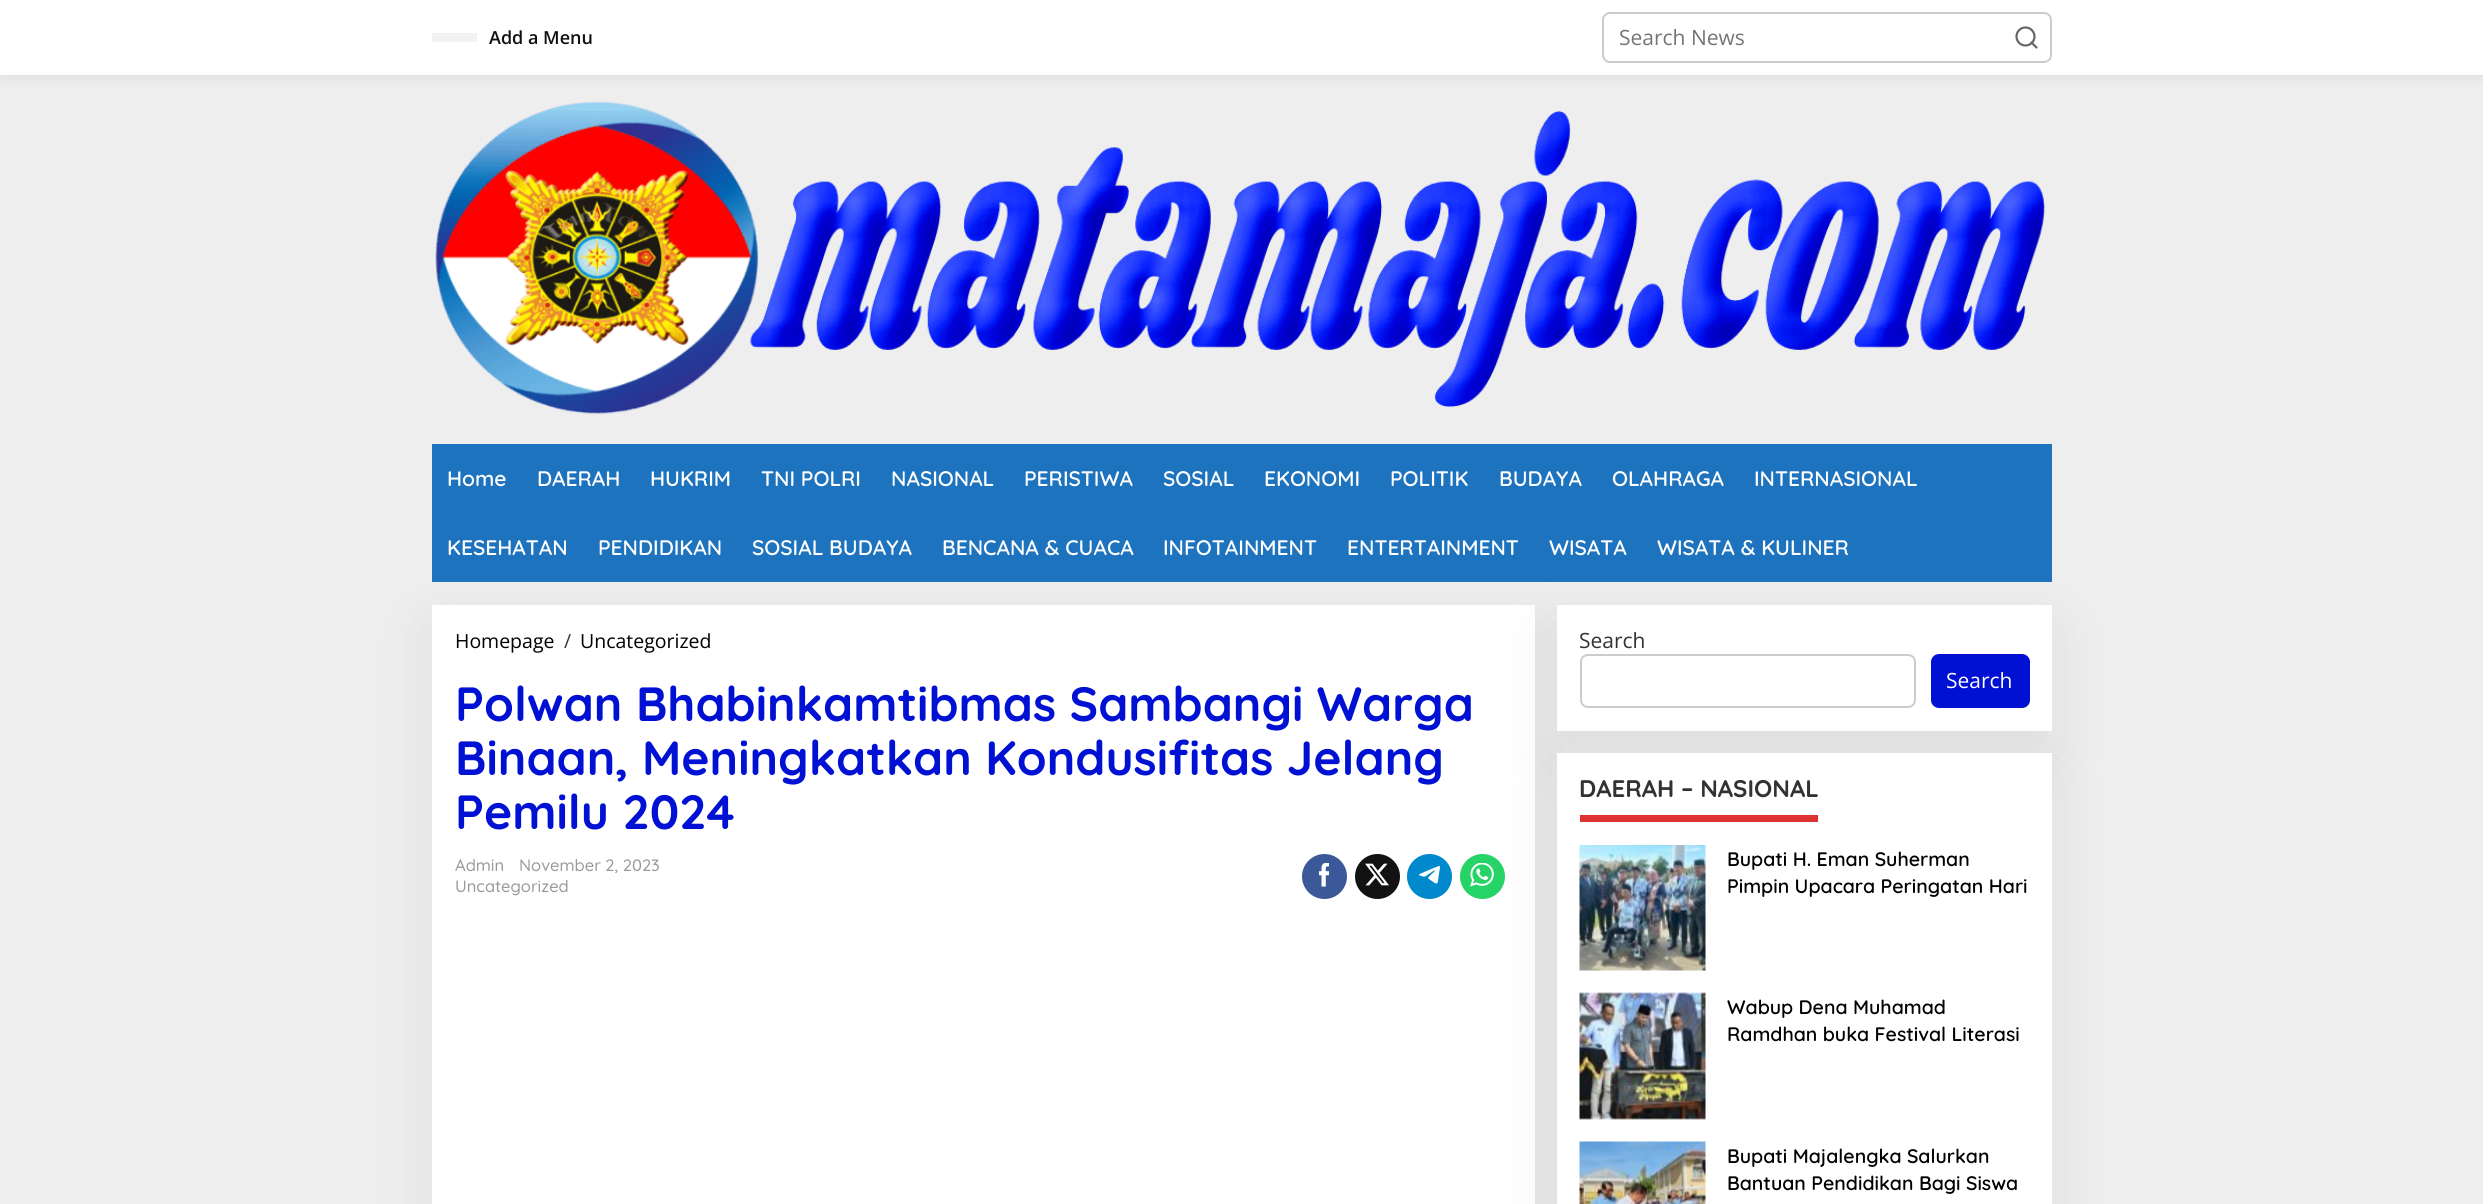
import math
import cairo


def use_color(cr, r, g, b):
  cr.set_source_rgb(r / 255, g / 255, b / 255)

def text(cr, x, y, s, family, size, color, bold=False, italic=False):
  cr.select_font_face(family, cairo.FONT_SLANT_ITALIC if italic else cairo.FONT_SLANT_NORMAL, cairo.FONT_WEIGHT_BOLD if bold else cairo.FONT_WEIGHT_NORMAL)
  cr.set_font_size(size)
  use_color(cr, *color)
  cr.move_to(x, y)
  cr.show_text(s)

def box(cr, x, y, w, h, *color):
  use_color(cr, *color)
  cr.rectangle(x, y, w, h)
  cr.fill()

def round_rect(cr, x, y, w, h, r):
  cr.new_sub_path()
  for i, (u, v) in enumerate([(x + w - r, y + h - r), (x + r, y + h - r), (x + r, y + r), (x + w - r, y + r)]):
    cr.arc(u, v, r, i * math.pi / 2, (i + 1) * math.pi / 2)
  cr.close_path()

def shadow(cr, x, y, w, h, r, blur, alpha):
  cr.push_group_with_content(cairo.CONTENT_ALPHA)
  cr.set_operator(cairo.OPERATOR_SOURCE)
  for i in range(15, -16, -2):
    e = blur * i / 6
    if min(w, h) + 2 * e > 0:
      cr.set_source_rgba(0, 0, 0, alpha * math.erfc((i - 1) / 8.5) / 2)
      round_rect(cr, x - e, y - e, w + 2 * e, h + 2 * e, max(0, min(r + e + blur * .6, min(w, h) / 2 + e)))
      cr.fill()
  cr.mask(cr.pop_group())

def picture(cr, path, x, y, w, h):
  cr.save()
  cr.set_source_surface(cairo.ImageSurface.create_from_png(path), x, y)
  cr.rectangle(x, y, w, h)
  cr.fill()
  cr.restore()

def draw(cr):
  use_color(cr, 238, 238, 238)
  cr.paint()
  use_color(cr, 0, 0, 0)
  shadow(cr, 0, 0, 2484, 75, 0, 7.5, 0.1)
  box(cr, 0, 0, 2483, 75, 255, 255, 255)
  box(cr, 432, 33, 45, 9, 242, 242, 242)
  round_rect(cr, 1603, 13, 448, 49, 7)
  use_color(cr, 204, 204, 204)
  cr.stroke()
  cr.arc(2025.5, 36.5, 9, 0, 2 * math.pi)
  use_color(cr, 102, 102, 102)
  cr.set_line_width(2.2)
  cr.stroke()
  cr.new_path()
  cr.move_to(2036.5, 47.5)
  cr.line_to(2031.5, 42.5)
  cr.set_line_cap(cairo.LINE_CAP_ROUND)
  cr.set_line_join(cairo.LINE_JOIN_ROUND)
  cr.stroke()
  picture(cr, "img_01.png", 435, 101, 1610, 313)
  box(cr, 432, 444, 1620, 138, 30, 115, 190)
  use_color(cr, 0, 0, 0)
  shadow(cr, 432, 629, 1103, 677, 0, 34, 0.07)
  box(cr, 432, 605, 1103, 599, 255, 255, 255)
  use_color(cr, 59, 89, 152)
  cr.arc(1324.5, 876.5, 22.5, 0, 2 * math.pi)
  cr.fill()
  picture(cr, "img_02.png", 1319, 863, 10, 24)
  use_color(cr, 18, 18, 18)
  cr.arc(1377.5, 876.5, 22.5, 0, 2 * math.pi)
  cr.fill()
  picture(cr, "img_03.png", 1365, 863, 24, 23)
  use_color(cr, 0, 136, 204)
  cr.arc(1429.5, 876.5, 22.5, 0, 2 * math.pi)
  cr.fill()
  picture(cr, "img_04.png", 1419, 866, 21, 18)
  use_color(cr, 37, 211, 102)
  cr.arc(1482.5, 876.5, 22.5, 0, 2 * math.pi)
  cr.fill()
  picture(cr, "img_05.png", 1470, 863, 24, 24)
  use_color(cr, 0, 0, 0)
  shadow(cr, 1557, 629, 495, 126, 0, 34, 0.07)
  box(cr, 1557, 605, 495, 126, 255, 255, 255)
  use_color(cr, 0, 0, 0)
  shadow(cr, 1557, 777, 495, 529, 0, 34, 0.07)
  round_rect(cr, 1581, 655, 334, 52, 7)
  use_color(cr, 204, 204, 204)
  cr.set_line_width(2)
  cr.set_line_cap(cairo.LINE_CAP_BUTT)
  cr.set_line_join(cairo.LINE_JOIN_MITER)
  cr.stroke()
  use_color(cr, 0, 17, 211)
  round_rect(cr, 1932, 655, 97, 52, 7)
  cr.fill_preserve()
  cr.stroke()
  box(cr, 1557, 753, 495, 451, 255, 255, 255)
  box(cr, 1580, 815, 238, 7, 221, 51, 51)
  picture(cr, "img_06.png", 1579, 845, 127, 126)
  picture(cr, "img_07.png", 1579, 992, 127, 128)
  picture(cr, "img_08.png", 1579, 1141, 127, 63)
  text(cr, 489, 44, "Add a Menu", "Open Sans SemiBold", 18, (17, 17, 17))
  text(cr, 1619, 45, "Search News", "Open Sans", 21, (117, 117, 117))
  text(cr, 447, 486, "Home", "Quicksand SemiBold", 21, (255, 255, 255))
  text(cr, 537, 486, "DAERAH", "Quicksand SemiBold", 21, (255, 255, 255))
  text(cr, 650, 486, "HUKRIM", "Quicksand SemiBold", 21, (255, 255, 255))
  text(cr, 761, 486, "TNI POLRI", "Quicksand SemiBold", 21, (255, 255, 255))
  text(cr, 891, 486, "NASIONAL", "Quicksand SemiBold", 21, (255, 255, 255))
  text(cr, 1024, 486, "PERISTIWA", "Quicksand SemiBold", 21, (255, 255, 255))
  text(cr, 1163, 486, "SOSIAL", "Quicksand SemiBold", 21, (255, 255, 255))
  text(cr, 1264, 486, "EKONOMI", "Quicksand SemiBold", 21, (255, 255, 255))
  text(cr, 1390, 486, "POLITIK", "Quicksand SemiBold", 21, (255, 255, 255))
  text(cr, 1499, 486, "BUDAYA", "Quicksand SemiBold", 21, (255, 255, 255))
  text(cr, 1612, 486, "OLAHRAGA", "Quicksand SemiBold", 21, (255, 255, 255))
  text(cr, 1754, 486, "INTERNASIONAL", "Quicksand SemiBold", 21, (255, 255, 255))
  text(cr, 447, 555, "KESEHATAN", "Quicksand SemiBold", 21, (255, 255, 255))
  text(cr, 598, 555, "PENDIDIKAN", "Quicksand SemiBold", 21, (255, 255, 255))
  text(cr, 752, 555, "SOSIAL BUDAYA", "Quicksand SemiBold", 21, (255, 255, 255))
  text(cr, 942, 555, "BENCANA & CUACA", "Quicksand SemiBold", 21, (255, 255, 255))
  text(cr, 1163, 555, "INFOTAINMENT", "Quicksand SemiBold", 21, (255, 255, 255))
  text(cr, 1347, 555, "ENTERTAINMENT", "Quicksand SemiBold", 21, (255, 255, 255))
  text(cr, 1549, 555, "WISATA", "Quicksand SemiBold", 21, (255, 255, 255))
  text(cr, 1657, 555, "WISATA & KULINER", "Quicksand SemiBold", 21, (255, 255, 255))
  text(cr, 455, 648, "Homepage", "Open Sans", 19.5, (0, 0, 0))
  text(cr, 564, 648, "/", "Open Sans", 19.5, (50, 50, 51))
  text(cr, 580, 648, "Uncategorized", "Open Sans", 19.5, (0, 0, 0))
  text(cr, 455, 721, "Polwan Bhabinkamtibmas Sambangi Warga", "Quicksand", 48, (0, 17, 211), bold=True)
  text(cr, 455, 775, "Binaan, Meningkatkan Kondusifitas Jelang", "Quicksand", 48, (0, 17, 211), bold=True)
  text(cr, 455, 829, "Pemilu 2024", "Quicksand", 48, (0, 17, 211), bold=True)
  text(cr, 455, 871, "Admin", "Quicksand Medium", 16.5, (153, 153, 153))
  text(cr, 519, 871, "November 2, 2023", "Quicksand Medium", 16.5, (153, 153, 153))
  text(cr, 455, 892, "Uncategorized", "Quicksand Medium", 16.5, (153, 153, 153))
  text(cr, 1579, 648, "Search", "Open Sans", 21, (50, 50, 51))
  text(cr, 1946, 688, "Search", "Open Sans", 21, (255, 255, 255))
  text(cr, 1579, 797, "DAERAH – NASIONAL", "Quicksand", 24, (50, 50, 51), bold=True)
  text(cr, 1727, 866, "Bupati H. Eman Suherman", "Quicksand SemiBold", 19.5, (0, 0, 0))
  text(cr, 1727, 893, "Pimpin Upacara Peringatan Hari", "Quicksand SemiBold", 19.5, (0, 0, 0))
  text(cr, 1727, 1014, "Wabup Dena Muhamad", "Quicksand SemiBold", 19.5, (0, 0, 0))
  text(cr, 1727, 1041, "Ramdhan buka Festival Literasi", "Quicksand SemiBold", 19.5, (0, 0, 0))
  text(cr, 1727, 1163, "Bupati Majalengka Salurkan", "Quicksand SemiBold", 19.5, (0, 0, 0))
  text(cr, 1727, 1190, "Bantuan Pendidikan Bagi Siswa", "Quicksand SemiBold", 19.5, (0, 0, 0))


surface = cairo.ImageSurface(cairo.FORMAT_RGB24, 2483, 1204)
cr = cairo.Context(surface)
options = cairo.FontOptions()
options.set_hint_metrics(cairo.HINT_METRICS_OFF)
options.set_hint_style(cairo.HINT_STYLE_NONE)
cr.set_font_options(options)
cr.set_miter_limit(4)
draw(cr)
surface.write_to_png("out.png")
